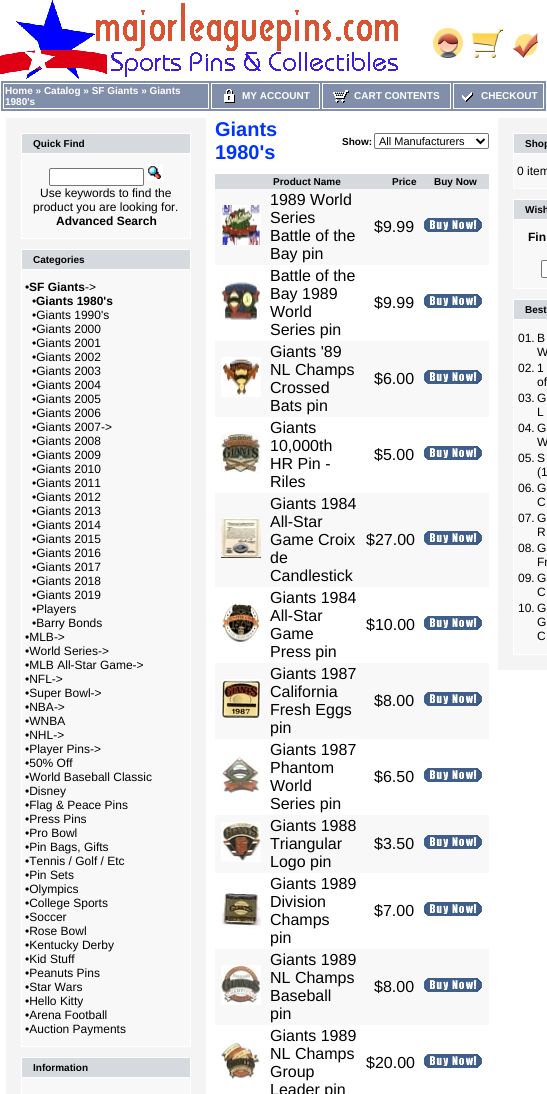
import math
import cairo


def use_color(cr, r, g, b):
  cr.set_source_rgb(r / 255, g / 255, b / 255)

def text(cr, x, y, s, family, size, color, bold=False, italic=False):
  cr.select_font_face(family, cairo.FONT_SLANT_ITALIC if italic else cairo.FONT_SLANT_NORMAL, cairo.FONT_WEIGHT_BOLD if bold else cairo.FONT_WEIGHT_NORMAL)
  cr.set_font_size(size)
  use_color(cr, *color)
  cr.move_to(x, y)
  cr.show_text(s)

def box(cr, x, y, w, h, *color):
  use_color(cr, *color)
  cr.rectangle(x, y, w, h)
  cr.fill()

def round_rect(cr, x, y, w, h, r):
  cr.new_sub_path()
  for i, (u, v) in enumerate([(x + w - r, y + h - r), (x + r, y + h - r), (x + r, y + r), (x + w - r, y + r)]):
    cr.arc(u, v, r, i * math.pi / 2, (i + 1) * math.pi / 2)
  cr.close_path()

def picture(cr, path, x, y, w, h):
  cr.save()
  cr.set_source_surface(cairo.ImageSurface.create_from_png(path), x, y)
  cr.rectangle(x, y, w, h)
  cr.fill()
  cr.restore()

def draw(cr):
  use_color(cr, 255, 255, 255)
  cr.paint()
  picture(cr, "img_01.png", 0, 0, 398, 80)
  picture(cr, "img_02.png", 433, 28, 30, 30)
  picture(cr, "img_03.png", 472, 29, 31, 29)
  picture(cr, "img_04.png", 512, 33, 26, 25)
  box(cr, 1, 81, 545, 30, 129, 143, 171)
  cr.rectangle(3.5, 83.5, 205, 25)
  use_color(cr, 255, 255, 255)
  cr.set_line_width(1)
  cr.stroke()
  cr.rectangle(211.5, 83.5, 108, 25)
  cr.stroke()
  picture(cr, "img_05.png", 224, 89, 11, 14)
  cr.rectangle(322.5, 83.5, 128, 25)
  cr.stroke()
  picture(cr, "img_06.png", 333, 90, 16, 13)
  cr.rectangle(453.5, 83.5, 90, 25)
  cr.stroke()
  picture(cr, "img_07.png", 462, 92, 11, 10)
  box(cr, 6, 118, 200, 976, 244, 244, 244)
  box(cr, 22, 134, 168, 19, 214, 217, 222)
  box(cr, 21, 133, 170, 1, 255, 255, 255)
  box(cr, 21, 133, 1, 20, 255, 255, 255)
  box(cr, 190, 133, 1, 20, 255, 255, 255)
  box(cr, 21, 153, 170, 86, 255, 255, 255)
  box(cr, 22, 154, 168, 84, 248, 248, 249)
  use_color(cr, 255, 255, 255)
  round_rect(cr, 49.5, 168.5, 94, 17, 1.5)
  cr.fill_preserve()
  use_color(cr, 118, 118, 118)
  cr.stroke()
  picture(cr, "img_08.png", 147, 164, 16, 17)
  box(cr, 22, 250, 168, 19, 214, 217, 222)
  box(cr, 21, 249, 170, 1, 255, 255, 255)
  box(cr, 21, 249, 1, 20, 255, 255, 255)
  box(cr, 190, 249, 1, 20, 255, 255, 255)
  box(cr, 21, 269, 170, 778, 255, 255, 255)
  box(cr, 22, 270, 168, 776, 248, 248, 249)
  box(cr, 22, 1058, 168, 19, 214, 217, 222)
  box(cr, 21, 1057, 170, 1, 255, 255, 255)
  box(cr, 21, 1057, 1, 20, 255, 255, 255)
  box(cr, 190, 1057, 1, 20, 255, 255, 255)
  box(cr, 21, 1077, 170, 17, 255, 255, 255)
  box(cr, 22, 1078, 168, 16, 248, 248, 249)
  round_rect(cr, 374.5, 133.5, 114, 15, 1.5)
  use_color(cr, 118, 118, 118)
  cr.stroke()
  cr.new_path()
  cr.move_to(476.5, 139)
  cr.line_to(480.5, 143)
  cr.line_to(484.5, 139)
  use_color(cr, 0, 0, 0)
  cr.set_line_width(2)
  cr.stroke()
  box(cr, 215, 174, 274, 15, 214, 217, 222)
  box(cr, 215, 189, 274, 76, 248, 248, 249)
  picture(cr, "img_09.png", 221, 205, 40, 40)
  picture(cr, "img_10.png", 424, 218, 58, 14)
  picture(cr, "img_11.png", 221, 281, 40, 39)
  picture(cr, "img_12.png", 424, 294, 58, 14)
  box(cr, 215, 341, 274, 76, 248, 248, 249)
  picture(cr, "img_13.png", 221, 357, 40, 40)
  picture(cr, "img_10.png", 424, 370, 58, 14)
  picture(cr, "img_14.png", 221, 433, 40, 40)
  picture(cr, "img_12.png", 424, 446, 58, 14)
  box(cr, 215, 493, 274, 94, 248, 248, 249)
  picture(cr, "img_15.png", 221, 518, 40, 40)
  picture(cr, "img_10.png", 424, 531, 58, 14)
  picture(cr, "img_16.png", 222, 603, 38, 40)
  picture(cr, "img_12.png", 424, 616, 58, 14)
  box(cr, 215, 663, 274, 76, 248, 248, 249)
  picture(cr, "img_17.png", 221, 679, 40, 40)
  picture(cr, "img_10.png", 424, 692, 58, 14)
  picture(cr, "img_18.png", 221, 755, 38, 38)
  picture(cr, "img_12.png", 424, 768, 58, 14)
  box(cr, 215, 815, 274, 58, 248, 248, 249)
  picture(cr, "img_19.png", 221, 822, 40, 40)
  picture(cr, "img_10.png", 424, 835, 58, 14)
  picture(cr, "img_20.png", 221, 893, 40, 36)
  picture(cr, "img_12.png", 424, 902, 58, 14)
  box(cr, 215, 949, 274, 76, 248, 248, 249)
  picture(cr, "img_21.png", 221, 965, 40, 40)
  picture(cr, "img_10.png", 424, 978, 58, 14)
  picture(cr, "img_22.png", 221, 1041, 39, 38)
  picture(cr, "img_12.png", 424, 1054, 58, 14)
  box(cr, 498, 118, 49, 552, 244, 244, 244)
  box(cr, 514, 134, 33, 19, 214, 217, 222)
  box(cr, 513, 133, 34, 1, 255, 255, 255)
  box(cr, 513, 133, 1, 20, 255, 255, 255)
  box(cr, 513, 153, 34, 36, 255, 255, 255)
  box(cr, 514, 154, 33, 34, 248, 248, 249)
  box(cr, 514, 200, 33, 19, 214, 217, 222)
  box(cr, 513, 199, 34, 1, 255, 255, 255)
  box(cr, 513, 199, 1, 20, 255, 255, 255)
  box(cr, 513, 219, 34, 70, 255, 255, 255)
  box(cr, 514, 220, 33, 68, 248, 248, 249)
  use_color(cr, 255, 255, 255)
  round_rect(cr, 541.5, 260.5, 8, 17, 1.5)
  cr.fill_preserve()
  use_color(cr, 118, 118, 118)
  cr.set_line_width(1)
  cr.stroke()
  box(cr, 514, 300, 33, 19, 214, 217, 222)
  box(cr, 513, 299, 34, 1, 255, 255, 255)
  box(cr, 513, 299, 1, 20, 255, 255, 255)
  box(cr, 513, 319, 34, 336, 255, 255, 255)
  box(cr, 514, 320, 33, 334, 248, 248, 249)
  text(cr, 5, 94, "Home » Catalog » SF Giants » Giants", "Liberation Sans", 10, (255, 255, 255), bold=True)
  text(cr, 5, 105, "1980's", "Liberation Sans", 10, (255, 255, 255), bold=True)
  text(cr, 242, 99, "MY ACCOUNT", "Liberation Sans", 10, (255, 255, 255), bold=True)
  text(cr, 354, 99, "CART CONTENTS", "Liberation Sans", 10, (255, 255, 255), bold=True)
  text(cr, 481, 99, "CHECKOUT", "Liberation Sans", 10, (255, 255, 255), bold=True)
  text(cr, 33, 147, "Quick Find", "Liberation Sans", 10, (0, 0, 0), bold=True)
  text(cr, 40, 197, "Use keywords to find the", "Liberation Sans", 12, (0, 0, 0))
  text(cr, 33, 211, "product you are looking for.", "Liberation Sans", 12, (0, 0, 0))
  text(cr, 56, 225, "Advanced Search", "Liberation Sans", 12, (0, 0, 0), bold=True)
  text(cr, 33, 263, "Categories", "Liberation Sans", 10, (0, 0, 0), bold=True)
  text(cr, 25, 291, "•", "Liberation Sans", 12, (0, 0, 0))
  text(cr, 29, 291, "SF Giants", "Liberation Sans", 12, (0, 0, 0), bold=True)
  text(cr, 85, 291, "->", "Liberation Sans", 12, (0, 0, 0))
  text(cr, 32, 305, "•", "Liberation Sans", 12, (0, 0, 0))
  text(cr, 36, 305, "Giants 1980's", "Liberation Sans", 12, (0, 0, 0), bold=True)
  text(cr, 32, 319, "•Giants 1990's", "Liberation Sans", 12, (0, 0, 0))
  text(cr, 32, 333, "•Giants 2000", "Liberation Sans", 12, (0, 0, 0))
  text(cr, 32, 347, "•Giants 2001", "Liberation Sans", 12, (0, 0, 0))
  text(cr, 32, 361, "•Giants 2002", "Liberation Sans", 12, (0, 0, 0))
  text(cr, 32, 375, "•Giants 2003", "Liberation Sans", 12, (0, 0, 0))
  text(cr, 32, 389, "•Giants 2004", "Liberation Sans", 12, (0, 0, 0))
  text(cr, 32, 403, "•Giants 2005", "Liberation Sans", 12, (0, 0, 0))
  text(cr, 32, 417, "•Giants 2006", "Liberation Sans", 12, (0, 0, 0))
  text(cr, 32, 431, "•Giants 2007->", "Liberation Sans", 12, (0, 0, 0))
  text(cr, 32, 445, "•Giants 2008", "Liberation Sans", 12, (0, 0, 0))
  text(cr, 32, 459, "•Giants 2009", "Liberation Sans", 12, (0, 0, 0))
  text(cr, 32, 473, "•Giants 2010", "Liberation Sans", 12, (0, 0, 0))
  text(cr, 32, 487, "•Giants 2011", "Liberation Sans", 12, (0, 0, 0))
  text(cr, 32, 501, "•Giants 2012", "Liberation Sans", 12, (0, 0, 0))
  text(cr, 32, 515, "•Giants 2013", "Liberation Sans", 12, (0, 0, 0))
  text(cr, 32, 529, "•Giants 2014", "Liberation Sans", 12, (0, 0, 0))
  text(cr, 32, 543, "•Giants 2015", "Liberation Sans", 12, (0, 0, 0))
  text(cr, 32, 557, "•Giants 2016", "Liberation Sans", 12, (0, 0, 0))
  text(cr, 32, 571, "•Giants 2017", "Liberation Sans", 12, (0, 0, 0))
  text(cr, 32, 585, "•Giants 2018", "Liberation Sans", 12, (0, 0, 0))
  text(cr, 32, 599, "•Giants 2019", "Liberation Sans", 12, (0, 0, 0))
  text(cr, 32, 613, "•Players", "Liberation Sans", 12, (0, 0, 0))
  text(cr, 32, 627, "•Barry Bonds", "Liberation Sans", 12, (0, 0, 0))
  text(cr, 25, 641, "•MLB->", "Liberation Sans", 12, (0, 0, 0))
  text(cr, 25, 655, "•World Series->", "Liberation Sans", 12, (0, 0, 0))
  text(cr, 25, 669, "•MLB All-Star Game->", "Liberation Sans", 12, (0, 0, 0))
  text(cr, 25, 683, "•NFL->", "Liberation Sans", 12, (0, 0, 0))
  text(cr, 25, 697, "•Super Bowl->", "Liberation Sans", 12, (0, 0, 0))
  text(cr, 25, 711, "•NBA->", "Liberation Sans", 12, (0, 0, 0))
  text(cr, 25, 725, "•WNBA", "Liberation Sans", 12, (0, 0, 0))
  text(cr, 25, 739, "•NHL->", "Liberation Sans", 12, (0, 0, 0))
  text(cr, 25, 753, "•Player Pins->", "Liberation Sans", 12, (0, 0, 0))
  text(cr, 25, 767, "•50% Off", "Liberation Sans", 12, (0, 0, 0))
  text(cr, 25, 781, "•World Baseball Classic", "Liberation Sans", 12, (0, 0, 0))
  text(cr, 25, 795, "•Disney", "Liberation Sans", 12, (0, 0, 0))
  text(cr, 25, 809, "•Flag & Peace Pins", "Liberation Sans", 12, (0, 0, 0))
  text(cr, 25, 823, "•Press Pins", "Liberation Sans", 12, (0, 0, 0))
  text(cr, 25, 837, "•Pro Bowl", "Liberation Sans", 12, (0, 0, 0))
  text(cr, 25, 851, "•Pin Bags, Gifts", "Liberation Sans", 12, (0, 0, 0))
  text(cr, 25, 865, "•Tennis / Golf / Etc", "Liberation Sans", 12, (0, 0, 0))
  text(cr, 25, 879, "•Pin Sets", "Liberation Sans", 12, (0, 0, 0))
  text(cr, 25, 893, "•Olympics", "Liberation Sans", 12, (0, 0, 0))
  text(cr, 25, 907, "•College Sports", "Liberation Sans", 12, (0, 0, 0))
  text(cr, 25, 921, "•Soccer", "Liberation Sans", 12, (0, 0, 0))
  text(cr, 25, 935, "•Rose Bowl", "Liberation Sans", 12, (0, 0, 0))
  text(cr, 25, 949, "•Kentucky Derby", "Liberation Sans", 12, (0, 0, 0))
  text(cr, 25, 963, "•Kid Stuff", "Liberation Sans", 12, (0, 0, 0))
  text(cr, 25, 977, "•Peanuts Pins", "Liberation Sans", 12, (0, 0, 0))
  text(cr, 25, 991, "•Star Wars", "Liberation Sans", 12, (0, 0, 0))
  text(cr, 25, 1005, "•Hello Kitty", "Liberation Sans", 12, (0, 0, 0))
  text(cr, 25, 1019, "•Arena Football", "Liberation Sans", 12, (0, 0, 0))
  text(cr, 25, 1033, "•Auction Payments", "Liberation Sans", 12, (0, 0, 0))
  text(cr, 33, 1071, "Information", "Liberation Sans", 10, (0, 0, 0), bold=True)
  text(cr, 215, 136, "Giants", "Liberation Sans", 20, (0, 51, 255), bold=True)
  text(cr, 215, 159, "1980's", "Liberation Sans", 20, (0, 51, 255), bold=True)
  text(cr, 342, 145, "Show:", "Liberation Sans", 10, (0, 0, 0), bold=True)
  text(cr, 379, 145, "All Manufacturers", "Liberation Sans", 11, (0, 0, 0))
  text(cr, 273, 185, "Product Name", "Liberation Sans", 10, (0, 0, 0), bold=True)
  text(cr, 392, 185, "Price", "Liberation Sans", 10, (0, 0, 0), bold=True)
  text(cr, 434, 185, "Buy Now", "Liberation Sans", 10, (0, 0, 0), bold=True)
  text(cr, 270, 205, "1989 World", "Liberation Sans", 16, (0, 0, 0))
  text(cr, 270, 223, "Series", "Liberation Sans", 16, (0, 0, 0))
  text(cr, 270, 241, "Battle of the", "Liberation Sans", 16, (0, 0, 0))
  text(cr, 270, 259, "Bay pin", "Liberation Sans", 16, (0, 0, 0))
  text(cr, 374, 232, "$9.99", "Liberation Sans", 16, (0, 0, 0))
  text(cr, 270, 281, "Battle of the", "Liberation Sans", 16, (0, 0, 0))
  text(cr, 270, 299, "Bay 1989", "Liberation Sans", 16, (0, 0, 0))
  text(cr, 270, 317, "World", "Liberation Sans", 16, (0, 0, 0))
  text(cr, 270, 335, "Series pin", "Liberation Sans", 16, (0, 0, 0))
  text(cr, 374, 308, "$9.99", "Liberation Sans", 16, (0, 0, 0))
  text(cr, 270, 357, "Giants '89", "Liberation Sans", 16, (0, 0, 0))
  text(cr, 270, 375, "NL Champs", "Liberation Sans", 16, (0, 0, 0))
  text(cr, 270, 393, "Crossed", "Liberation Sans", 16, (0, 0, 0))
  text(cr, 270, 411, "Bats pin", "Liberation Sans", 16, (0, 0, 0))
  text(cr, 374, 384, "$6.00", "Liberation Sans", 16, (0, 0, 0))
  text(cr, 270, 433, "Giants", "Liberation Sans", 16, (0, 0, 0))
  text(cr, 270, 451, "10,000th", "Liberation Sans", 16, (0, 0, 0))
  text(cr, 270, 469, "HR Pin -", "Liberation Sans", 16, (0, 0, 0))
  text(cr, 270, 487, "Riles", "Liberation Sans", 16, (0, 0, 0))
  text(cr, 374, 460, "$5.00", "Liberation Sans", 16, (0, 0, 0))
  text(cr, 270, 509, "Giants 1984", "Liberation Sans", 16, (0, 0, 0))
  text(cr, 270, 527, "All-Star", "Liberation Sans", 16, (0, 0, 0))
  text(cr, 270, 545, "Game Croix", "Liberation Sans", 16, (0, 0, 0))
  text(cr, 270, 563, "de", "Liberation Sans", 16, (0, 0, 0))
  text(cr, 270, 581, "Candlestick", "Liberation Sans", 16, (0, 0, 0))
  text(cr, 366, 545, "$27.00", "Liberation Sans", 16, (0, 0, 0))
  text(cr, 270, 603, "Giants 1984", "Liberation Sans", 16, (0, 0, 0))
  text(cr, 270, 621, "All-Star", "Liberation Sans", 16, (0, 0, 0))
  text(cr, 270, 639, "Game", "Liberation Sans", 16, (0, 0, 0))
  text(cr, 270, 657, "Press pin", "Liberation Sans", 16, (0, 0, 0))
  text(cr, 366, 630, "$10.00", "Liberation Sans", 16, (0, 0, 0))
  text(cr, 270, 679, "Giants 1987", "Liberation Sans", 16, (0, 0, 0))
  text(cr, 270, 697, "California", "Liberation Sans", 16, (0, 0, 0))
  text(cr, 270, 715, "Fresh Eggs", "Liberation Sans", 16, (0, 0, 0))
  text(cr, 270, 733, "pin", "Liberation Sans", 16, (0, 0, 0))
  text(cr, 374, 706, "$8.00", "Liberation Sans", 16, (0, 0, 0))
  text(cr, 270, 755, "Giants 1987", "Liberation Sans", 16, (0, 0, 0))
  text(cr, 270, 773, "Phantom", "Liberation Sans", 16, (0, 0, 0))
  text(cr, 270, 791, "World", "Liberation Sans", 16, (0, 0, 0))
  text(cr, 270, 809, "Series pin", "Liberation Sans", 16, (0, 0, 0))
  text(cr, 374, 782, "$6.50", "Liberation Sans", 16, (0, 0, 0))
  text(cr, 270, 831, "Giants 1988", "Liberation Sans", 16, (0, 0, 0))
  text(cr, 270, 849, "Triangular", "Liberation Sans", 16, (0, 0, 0))
  text(cr, 270, 867, "Logo pin", "Liberation Sans", 16, (0, 0, 0))
  text(cr, 374, 849, "$3.50", "Liberation Sans", 16, (0, 0, 0))
  text(cr, 270, 889, "Giants 1989", "Liberation Sans", 16, (0, 0, 0))
  text(cr, 270, 907, "Division", "Liberation Sans", 16, (0, 0, 0))
  text(cr, 270, 925, "Champs", "Liberation Sans", 16, (0, 0, 0))
  text(cr, 270, 943, "pin", "Liberation Sans", 16, (0, 0, 0))
  text(cr, 374, 916, "$7.00", "Liberation Sans", 16, (0, 0, 0))
  text(cr, 270, 965, "Giants 1989", "Liberation Sans", 16, (0, 0, 0))
  text(cr, 270, 983, "NL Champs", "Liberation Sans", 16, (0, 0, 0))
  text(cr, 270, 1001, "Baseball", "Liberation Sans", 16, (0, 0, 0))
  text(cr, 270, 1019, "pin", "Liberation Sans", 16, (0, 0, 0))
  text(cr, 374, 992, "$8.00", "Liberation Sans", 16, (0, 0, 0))
  text(cr, 270, 1041, "Giants 1989", "Liberation Sans", 16, (0, 0, 0))
  text(cr, 270, 1059, "NL Champs", "Liberation Sans", 16, (0, 0, 0))
  text(cr, 270, 1077, "Group", "Liberation Sans", 16, (0, 0, 0))
  text(cr, 270, 1095, "Leader pin", "Liberation Sans", 16, (0, 0, 0))
  text(cr, 366, 1068, "$20.00", "Liberation Sans", 16, (0, 0, 0))
  text(cr, 525, 147, "Shop", "Liberation Sans", 10, (0, 0, 0), bold=True)
  text(cr, 517, 175, "0 item", "Liberation Sans", 12, (0, 0, 0))
  text(cr, 525, 213, "Wish", "Liberation Sans", 10, (0, 0, 0), bold=True)
  text(cr, 528, 241, "Fin", "Liberation Sans", 12, (0, 0, 0), bold=True)
  text(cr, 525, 313, "Best", "Liberation Sans", 10, (0, 0, 0), bold=True)
  text(cr, 518, 342, "01.", "Liberation Sans", 12, (0, 0, 0))
  text(cr, 537, 342, "B", "Liberation Sans", 12, (0, 0, 0))
  text(cr, 537, 356, "W", "Liberation Sans", 12, (0, 0, 0))
  text(cr, 518, 372, "02.", "Liberation Sans", 12, (0, 0, 0))
  text(cr, 537, 372, "1", "Liberation Sans", 12, (0, 0, 0))
  text(cr, 537, 386, "of", "Liberation Sans", 12, (0, 0, 0))
  text(cr, 518, 402, "03.", "Liberation Sans", 12, (0, 0, 0))
  text(cr, 537, 402, "G", "Liberation Sans", 12, (0, 0, 0))
  text(cr, 537, 416, "L", "Liberation Sans", 12, (0, 0, 0))
  text(cr, 518, 432, "04.", "Liberation Sans", 12, (0, 0, 0))
  text(cr, 537, 432, "G", "Liberation Sans", 12, (0, 0, 0))
  text(cr, 537, 446, "W", "Liberation Sans", 12, (0, 0, 0))
  text(cr, 518, 462, "05.", "Liberation Sans", 12, (0, 0, 0))
  text(cr, 537, 462, "S", "Liberation Sans", 12, (0, 0, 0))
  text(cr, 537, 476, "(1", "Liberation Sans", 12, (0, 0, 0))
  text(cr, 518, 492, "06.", "Liberation Sans", 12, (0, 0, 0))
  text(cr, 537, 492, "G", "Liberation Sans", 12, (0, 0, 0))
  text(cr, 537, 506, "C", "Liberation Sans", 12, (0, 0, 0))
  text(cr, 518, 522, "07.", "Liberation Sans", 12, (0, 0, 0))
  text(cr, 537, 522, "G", "Liberation Sans", 12, (0, 0, 0))
  text(cr, 537, 536, "R", "Liberation Sans", 12, (0, 0, 0))
  text(cr, 518, 552, "08.", "Liberation Sans", 12, (0, 0, 0))
  text(cr, 537, 552, "G", "Liberation Sans", 12, (0, 0, 0))
  text(cr, 537, 566, "Fr", "Liberation Sans", 12, (0, 0, 0))
  text(cr, 518, 582, "09.", "Liberation Sans", 12, (0, 0, 0))
  text(cr, 537, 582, "G", "Liberation Sans", 12, (0, 0, 0))
  text(cr, 537, 596, "C", "Liberation Sans", 12, (0, 0, 0))
  text(cr, 518, 612, "10.", "Liberation Sans", 12, (0, 0, 0))
  text(cr, 537, 612, "G", "Liberation Sans", 12, (0, 0, 0))
  text(cr, 537, 626, "G", "Liberation Sans", 12, (0, 0, 0))
  text(cr, 537, 640, "C", "Liberation Sans", 12, (0, 0, 0))


surface = cairo.ImageSurface(cairo.FORMAT_RGB24, 547, 1094)
cr = cairo.Context(surface)
options = cairo.FontOptions()
options.set_hint_metrics(cairo.HINT_METRICS_OFF)
options.set_hint_style(cairo.HINT_STYLE_NONE)
cr.set_font_options(options)
cr.set_miter_limit(4)
draw(cr)
surface.write_to_png("out.png")
